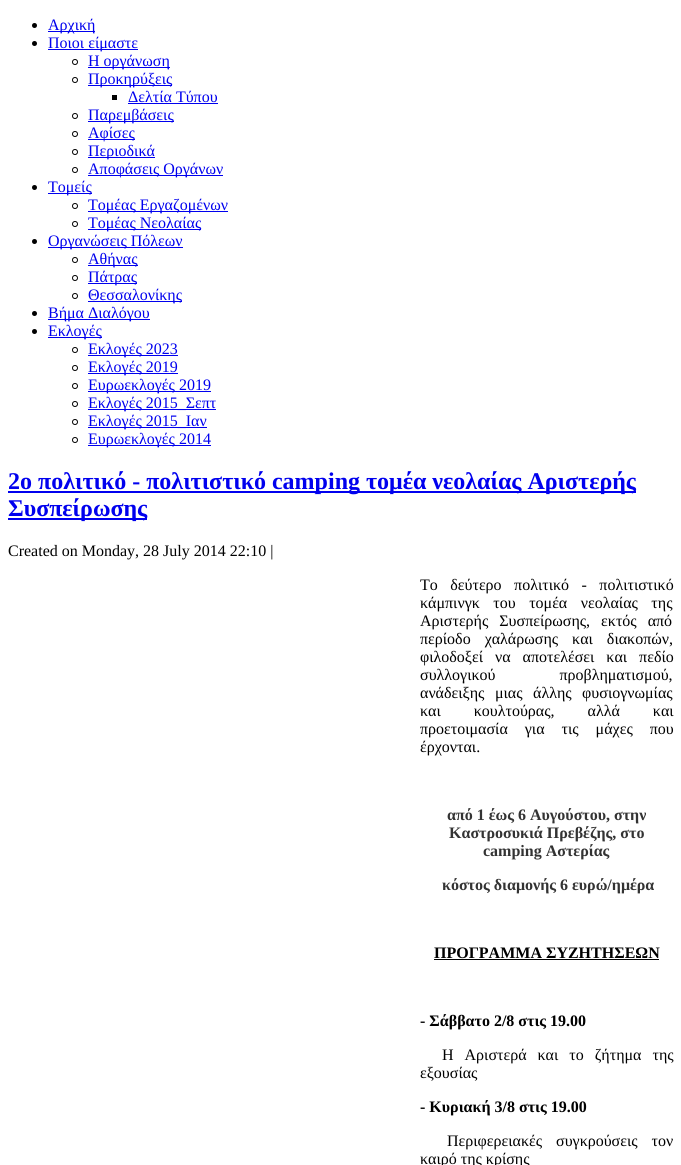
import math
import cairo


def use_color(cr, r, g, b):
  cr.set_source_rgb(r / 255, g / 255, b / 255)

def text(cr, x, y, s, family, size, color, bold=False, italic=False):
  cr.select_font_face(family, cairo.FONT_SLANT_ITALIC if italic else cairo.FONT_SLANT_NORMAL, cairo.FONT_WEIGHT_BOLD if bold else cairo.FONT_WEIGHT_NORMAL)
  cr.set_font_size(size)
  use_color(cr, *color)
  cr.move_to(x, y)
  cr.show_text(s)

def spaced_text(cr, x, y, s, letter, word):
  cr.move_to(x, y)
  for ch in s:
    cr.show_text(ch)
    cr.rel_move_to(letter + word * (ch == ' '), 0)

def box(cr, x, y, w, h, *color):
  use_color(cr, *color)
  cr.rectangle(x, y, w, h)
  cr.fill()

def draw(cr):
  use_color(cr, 255, 255, 255)
  cr.paint()
  use_color(cr, 0, 0, 0)
  cr.arc(34.5, 25.5, 2.5, 0, 2 * math.pi)
  cr.fill()
  box(cr, 48, 31, 47, 1, 0, 0, 238)
  use_color(cr, 0, 0, 0)
  cr.arc(34.5, 43.5, 2.5, 0, 2 * math.pi)
  cr.fill()
  box(cr, 48, 49, 90, 1, 0, 0, 238)
  cr.arc(75, 62, 2.5, 0, 2 * math.pi)
  use_color(cr, 0, 0, 0)
  cr.set_line_width(1)
  cr.stroke()
  box(cr, 88, 67, 82, 1, 0, 0, 238)
  cr.arc(75, 80, 2.5, 0, 2 * math.pi)
  use_color(cr, 0, 0, 0)
  cr.stroke()
  box(cr, 88, 85, 84, 1, 0, 0, 238)
  box(cr, 112, 95, 5, 5, 0, 0, 0)
  box(cr, 128, 103, 90, 1, 0, 0, 238)
  cr.arc(75, 116, 2.5, 0, 2 * math.pi)
  use_color(cr, 0, 0, 0)
  cr.stroke()
  box(cr, 88, 121, 86, 1, 0, 0, 238)
  cr.arc(75, 134, 2.5, 0, 2 * math.pi)
  use_color(cr, 0, 0, 0)
  cr.stroke()
  box(cr, 88, 139, 47, 1, 0, 0, 238)
  cr.arc(75, 152, 2.5, 0, 2 * math.pi)
  use_color(cr, 0, 0, 0)
  cr.stroke()
  box(cr, 88, 157, 67, 1, 0, 0, 238)
  cr.arc(75, 170, 2.5, 0, 2 * math.pi)
  use_color(cr, 0, 0, 0)
  cr.stroke()
  box(cr, 88, 175, 135, 1, 0, 0, 238)
  use_color(cr, 0, 0, 0)
  cr.arc(34.5, 187.5, 2.5, 0, 2 * math.pi)
  cr.fill()
  box(cr, 48, 193, 44, 1, 0, 0, 238)
  cr.arc(75, 206, 2.5, 0, 2 * math.pi)
  use_color(cr, 0, 0, 0)
  cr.stroke()
  box(cr, 88, 211, 140, 1, 0, 0, 238)
  cr.arc(75, 224, 2.5, 0, 2 * math.pi)
  use_color(cr, 0, 0, 0)
  cr.stroke()
  box(cr, 88, 229, 113, 1, 0, 0, 238)
  use_color(cr, 0, 0, 0)
  cr.arc(34.5, 241.5, 2.5, 0, 2 * math.pi)
  cr.fill()
  box(cr, 48, 247, 135, 1, 0, 0, 238)
  cr.arc(75, 260, 2.5, 0, 2 * math.pi)
  use_color(cr, 0, 0, 0)
  cr.stroke()
  box(cr, 88, 265, 50, 1, 0, 0, 238)
  cr.arc(75, 278, 2.5, 0, 2 * math.pi)
  use_color(cr, 0, 0, 0)
  cr.stroke()
  box(cr, 88, 283, 49, 1, 0, 0, 238)
  cr.arc(75, 296, 2.5, 0, 2 * math.pi)
  use_color(cr, 0, 0, 0)
  cr.stroke()
  box(cr, 88, 301, 94, 1, 0, 0, 238)
  use_color(cr, 0, 0, 0)
  cr.arc(34.5, 313.5, 2.5, 0, 2 * math.pi)
  cr.fill()
  box(cr, 48, 319, 102, 1, 0, 0, 238)
  use_color(cr, 0, 0, 0)
  cr.arc(34.5, 331.5, 2.5, 0, 2 * math.pi)
  cr.fill()
  box(cr, 48, 337, 54, 1, 0, 0, 238)
  cr.arc(75, 350, 2.5, 0, 2 * math.pi)
  use_color(cr, 0, 0, 0)
  cr.stroke()
  box(cr, 88, 355, 90, 1, 0, 0, 238)
  cr.arc(75, 368, 2.5, 0, 2 * math.pi)
  use_color(cr, 0, 0, 0)
  cr.stroke()
  box(cr, 88, 373, 90, 1, 0, 0, 238)
  cr.arc(75, 386, 2.5, 0, 2 * math.pi)
  use_color(cr, 0, 0, 0)
  cr.stroke()
  box(cr, 88, 391, 123, 1, 0, 0, 238)
  cr.arc(75, 404, 2.5, 0, 2 * math.pi)
  use_color(cr, 0, 0, 0)
  cr.stroke()
  box(cr, 88, 409, 128, 1, 0, 0, 238)
  cr.arc(75, 422, 2.5, 0, 2 * math.pi)
  use_color(cr, 0, 0, 0)
  cr.stroke()
  box(cr, 88, 427, 119, 1, 0, 0, 238)
  cr.arc(75, 440, 2.5, 0, 2 * math.pi)
  use_color(cr, 0, 0, 0)
  cr.stroke()
  box(cr, 88, 445, 123, 1, 0, 0, 238)
  box(cr, 8, 491, 628, 2, 0, 0, 238)
  box(cr, 8, 518, 139, 2, 0, 0, 238)
  box(cr, 434, 959, 225, 1, 0, 0, 0)
  text(cr, 48, 30, "Αρχική", "Liberation Serif", 16, (0, 0, 238))
  text(cr, 48, 48, "Ποιοι είμαστε", "Liberation Serif", 16, (0, 0, 238))
  text(cr, 88, 66, "Η οργάνωση", "Liberation Serif", 16, (0, 0, 238))
  text(cr, 88, 84, "Προκηρύξεις", "Liberation Serif", 16, (0, 0, 238))
  text(cr, 128, 102, "Δελτία Τύπου", "Liberation Serif", 16, (0, 0, 238))
  text(cr, 88, 120, "Παρεμβάσεις", "Liberation Serif", 16, (0, 0, 238))
  text(cr, 88, 138, "Αφίσες", "Liberation Serif", 16, (0, 0, 238))
  text(cr, 88, 156, "Περιοδικά", "Liberation Serif", 16, (0, 0, 238))
  text(cr, 88, 174, "Αποφάσεις Οργάνων", "Liberation Serif", 16, (0, 0, 238))
  text(cr, 48, 192, "Τομείς", "Liberation Serif", 16, (0, 0, 238))
  text(cr, 88, 210, "Τομέας Εργαζομένων", "Liberation Serif", 16, (0, 0, 238))
  text(cr, 88, 228, "Τομέας Νεολαίας", "Liberation Serif", 16, (0, 0, 238))
  text(cr, 48, 246, "Οργανώσεις Πόλεων", "Liberation Serif", 16, (0, 0, 238))
  text(cr, 88, 264, "Αθήνας", "Liberation Serif", 16, (0, 0, 238))
  text(cr, 88, 282, "Πάτρας", "Liberation Serif", 16, (0, 0, 238))
  text(cr, 88, 300, "Θεσσαλονίκης", "Liberation Serif", 16, (0, 0, 238))
  text(cr, 48, 318, "Βήμα Διαλόγου", "Liberation Serif", 16, (0, 0, 238))
  text(cr, 48, 336, "Εκλογές", "Liberation Serif", 16, (0, 0, 238))
  text(cr, 88, 354, "Εκλογές 2023", "Liberation Serif", 16, (0, 0, 238))
  text(cr, 88, 372, "Εκλογές 2019", "Liberation Serif", 16, (0, 0, 238))
  text(cr, 88, 390, "Ευρωεκλογές 2019", "Liberation Serif", 16, (0, 0, 238))
  text(cr, 88, 408, "Εκλογές 2015_Σεπτ", "Liberation Serif", 16, (0, 0, 238))
  text(cr, 88, 426, "Εκλογές 2015_Ιαν", "Liberation Serif", 16, (0, 0, 238))
  text(cr, 88, 444, "Ευρωεκλογές 2014", "Liberation Serif", 16, (0, 0, 238))
  text(cr, 8, 489, "2ο πολιτικό - πολιτιστικό camping τομέα νεολαίας Αριστερής", "Liberation Serif", 24, (0, 0, 238), bold=True)
  text(cr, 8, 516, "Συσπείρωσης", "Liberation Serif", 24, (0, 0, 238), bold=True)
  text(cr, 8, 556, "Created on Monday, 28 July 2014 22:10 |", "Liberation Serif", 16, (0, 0, 0))
  spaced_text(cr, 420, 590, "Το δεύτερο πολιτικό - πολιτιστικό", 0, 8.5)
  spaced_text(cr, 420, 608, "κάμπινγκ του τομέα νεολαίας της", 0, 9.5)
  spaced_text(cr, 420, 626, "Αριστερής Συσπείρωσης, εκτός από", 0, 7)
  spaced_text(cr, 420, 644, "περίοδο χαλάρωσης και διακοπών,", 0, 10)
  spaced_text(cr, 420, 662, "φιλοδοξεί να αποτελέσει και πεδίο", 0, 8)
  spaced_text(cr, 420, 680, "συλλογικού προβληματισμού,", 0, 60)
  spaced_text(cr, 420, 698, "ανάδειξης μιας άλλης φυσιογνωμίας", 0, 6.5)
  spaced_text(cr, 420, 716, "και κουλτούρας, αλλά και", 0, 29)
  spaced_text(cr, 420, 734, "προετοιμασία για τις μάχες που", 0, 13)
  text(cr, 420, 752, "έρχονται.", "Liberation Serif", 16, (0, 0, 0))
  text(cr, 447, 820, "από 1 έως 6 Αυγούστου, στην", "Liberation Serif", 16, (51, 51, 51), bold=True)
  text(cr, 449, 838, "Καστροσυκιά Πρεβέζης, στο", "Liberation Serif", 16, (51, 51, 51), bold=True)
  text(cr, 483, 856, "camping Αστερίας", "Liberation Serif", 16, (51, 51, 51), bold=True)
  text(cr, 442, 890, "κόστος διαμονής 6 ευρώ/ημέρα", "Liberation Serif", 16, (51, 51, 51), bold=True)
  text(cr, 434, 958, "ΠΡΟΓΡΑΜΜΑ ΣΥΖΗΤΗΣΕΩΝ", "Liberation Serif", 16, (0, 0, 0), bold=True)
  text(cr, 420, 1026, "- Σάββατο 2/8 στις 19.00", "Liberation Serif", 16, (0, 0, 0), bold=True)
  cr.select_font_face("Liberation Serif")
  spaced_text(cr, 442, 1060, "Η Αριστερά και το ζήτημα της", 0, 7)
  text(cr, 420, 1078, "εξουσίας", "Liberation Serif", 16, (0, 0, 0))
  text(cr, 420, 1112, "- Κυριακή 3/8 στις 19.00", "Liberation Serif", 16, (0, 0, 0), bold=True)
  cr.select_font_face("Liberation Serif")
  spaced_text(cr, 447, 1146, "Περιφερειακές συγκρούσεις τον", 0, 10)
  text(cr, 420, 1164, "καιρό της κρίσης", "Liberation Serif", 16, (0, 0, 0))


surface = cairo.ImageSurface(cairo.FORMAT_RGB24, 681, 1165)
cr = cairo.Context(surface)
options = cairo.FontOptions()
options.set_hint_metrics(cairo.HINT_METRICS_OFF)
options.set_hint_style(cairo.HINT_STYLE_NONE)
cr.set_font_options(options)
cr.set_miter_limit(4)
draw(cr)
surface.write_to_png("out.png")
